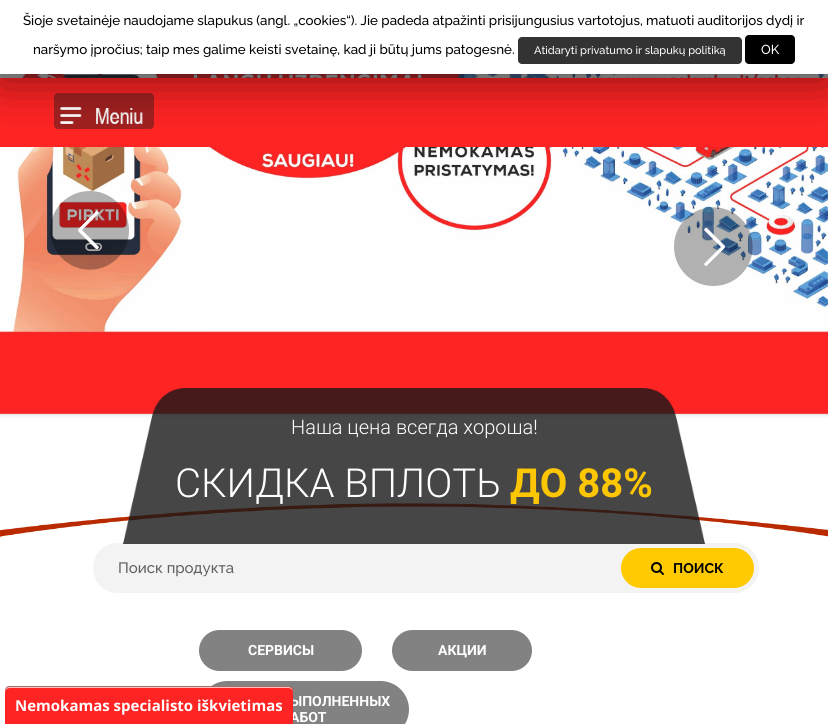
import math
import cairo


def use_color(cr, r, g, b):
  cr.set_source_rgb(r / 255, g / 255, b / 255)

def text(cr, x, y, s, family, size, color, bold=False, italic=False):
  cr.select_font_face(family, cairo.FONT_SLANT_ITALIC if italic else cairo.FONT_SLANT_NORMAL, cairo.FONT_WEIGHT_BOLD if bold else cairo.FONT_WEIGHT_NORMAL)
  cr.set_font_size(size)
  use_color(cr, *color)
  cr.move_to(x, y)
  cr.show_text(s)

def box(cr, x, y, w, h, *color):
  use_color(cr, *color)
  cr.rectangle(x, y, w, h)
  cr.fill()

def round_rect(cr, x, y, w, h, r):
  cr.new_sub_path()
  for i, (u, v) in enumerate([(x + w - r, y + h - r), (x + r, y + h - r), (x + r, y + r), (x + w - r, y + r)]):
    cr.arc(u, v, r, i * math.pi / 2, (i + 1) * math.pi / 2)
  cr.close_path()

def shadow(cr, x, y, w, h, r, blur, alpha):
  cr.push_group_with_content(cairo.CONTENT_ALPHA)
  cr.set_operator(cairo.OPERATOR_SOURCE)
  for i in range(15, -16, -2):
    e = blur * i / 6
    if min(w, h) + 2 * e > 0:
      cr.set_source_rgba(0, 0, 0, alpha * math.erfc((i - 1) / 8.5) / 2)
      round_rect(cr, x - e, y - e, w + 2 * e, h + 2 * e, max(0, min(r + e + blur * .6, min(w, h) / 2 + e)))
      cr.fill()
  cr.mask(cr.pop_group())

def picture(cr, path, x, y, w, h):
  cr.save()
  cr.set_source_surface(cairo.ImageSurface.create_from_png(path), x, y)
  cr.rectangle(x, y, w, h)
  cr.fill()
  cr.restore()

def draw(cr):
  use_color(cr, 255, 255, 255)
  cr.paint()
  use_color(cr, 204, 204, 204)
  shadow(cr, 0, 0, 828, 414, 0, 2.5, 1)
  picture(cr, "img_02.png", 0, 74, 828, 340)
  cr.set_source_rgba(0.122, 0.129, 0.141, 0.45)
  cr.rectangle(0, 74, 828, 4)
  cr.fill()
  box(cr, 0, 78, 828, 69, 255, 36, 36)
  use_color(cr, 161, 32, 32)
  round_rect(cr, 54, 93, 100, 36, 4)
  cr.fill()
  picture(cr, "img_01.png", 60, 107, 83, 17)
  use_color(cr, 0, 0, 0)
  shadow(cr, 0, 5, 828, 74, 0, 25, 0.5)
  box(cr, 0, 0, 828, 74, 255, 255, 255)
  use_color(cr, 51, 51, 51)
  round_rect(cr, 518, 37, 224, 27, 4)
  cr.fill()
  use_color(cr, 0, 0, 0)
  round_rect(cr, 745, 35, 50, 29, 4)
  cr.fill()
  picture(cr, "img_03.png", 50, 191, 79, 79)
  picture(cr, "img_04.png", 674, 207, 79, 79)
  picture(cr, "img_06.png", 0, 503, 828, 34)
  use_color(cr, 243, 243, 243)
  round_rect(cr, 93, 543, 666, 50, 25)
  cr.fill()
  picture(cr, "img_05.png", 122, 388, 584, 156)
  use_color(cr, 255, 202, 2)
  round_rect(cr, 621, 548, 133, 40, 20)
  cr.fill()
  picture(cr, "img_07.png", 651, 562, 13, 13)
  use_color(cr, 130, 130, 130)
  round_rect(cr, 199, 630, 163, 41, 20.5)
  cr.fill()
  round_rect(cr, 392, 630, 140, 41, 20.5)
  cr.fill()
  round_rect(cr, 199, 681, 210, 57, 28.5)
  cr.fill()
  text(cr, 23, 25, "Šioje svetainėje naudojame slapukus (angl. „cookies“). Jie padeda atpažinti prisijungusius vartotojus, matuoti auditorijos dydį ir", "Raleway Medium", 13.33, (0, 0, 0))
  text(cr, 33, 54, "naršymo įpročius; taip mes galime keisti svetainę, kad ji būtų jums patogesnė.", "Raleway Medium", 13.33, (0, 0, 0))
  text(cr, 534, 54, "Atidaryti privatumo ir slapukų politiką", "Raleway Medium", 11, (255, 255, 255))
  text(cr, 761, 54, "OK", "Raleway Medium", 13, (255, 255, 255))
  text(cr, 291, 434, "Наша цена всегда хороша!", "Roboto Light", 20, (255, 255, 255))
  text(cr, 175, 497, "СКИДКА ВПЛОТЬ", "Roboto Light", 40, (255, 255, 255))
  text(cr, 510, 497, "ДО 88%", "Roboto", 40, (252, 198, 3), bold=True)
  text(cr, 118, 573, "Поиск продукта", "Raleway Medium", 15, (96, 96, 96))
  text(cr, 673, 573, "ПОИСК", "Raleway", 14, (0, 0, 0), bold=True)
  text(cr, 248, 655, "СЕРВИСЫ", "Roboto", 14, (255, 255, 255), bold=True)
  text(cr, 438, 655, "АКЦИИ", "Roboto", 14, (255, 255, 255), bold=True)
  text(cr, 290, 706, "ЫПОЛНЕННЫХ", "Roboto", 14, (255, 255, 255), bold=True)
  text(cr, 290, 722, "АБОТ", "Roboto", 14, (255, 255, 255), bold=True)
  use_color(cr, 255, 36, 36)
  cr.new_path()
  cr.move_to(10, 686)
  cr.line_to(288, 686)
  cr.curve_to(291, 686, 293, 688, 293, 691)
  cr.line_to(293, 724)
  cr.line_to(5, 724)
  cr.line_to(5, 691)
  cr.curve_to(5, 688, 7, 686, 10, 686)
  cr.close_path()
  cr.fill()
  cr.set_source_rgba(1, 1, 1, 0.7)
  cr.new_path()
  cr.move_to(10, 688)
  cr.line_to(288, 688)
  cr.curve_to(291, 688, 293, 690, 293, 693)
  cr.curve_to(293, 690, 292, 686, 288, 686)
  cr.line_to(9, 686)
  cr.curve_to(5, 687, 5, 690, 5, 693)
  cr.curve_to(5, 690, 7, 688, 10, 688)
  cr.close_path()
  cr.fill()
  cr.set_source_rgba(0, 0, 0, 0.4)
  cr.new_path()
  cr.move_to(10, 687)
  cr.line_to(288, 687)
  cr.curve_to(291, 687, 293, 689, 293, 692)
  cr.line_to(293, 691)
  cr.curve_to(293, 688, 291, 686, 288, 686)
  cr.line_to(10, 686)
  cr.curve_to(7, 686, 5, 688, 5, 691)
  cr.line_to(5, 692)
  cr.curve_to(5, 689, 7, 687, 10, 687)
  cr.close_path()
  cr.fill()
  text(cr, 15, 711, "Nemokamas specialisto iškvietimas", "Open Sans", 15, (255, 255, 255), bold=True)


surface = cairo.ImageSurface(cairo.FORMAT_RGB24, 828, 724)
cr = cairo.Context(surface)
options = cairo.FontOptions()
options.set_hint_metrics(cairo.HINT_METRICS_OFF)
options.set_hint_style(cairo.HINT_STYLE_NONE)
cr.set_font_options(options)
cr.set_miter_limit(4)
draw(cr)
surface.write_to_png("out.png")
